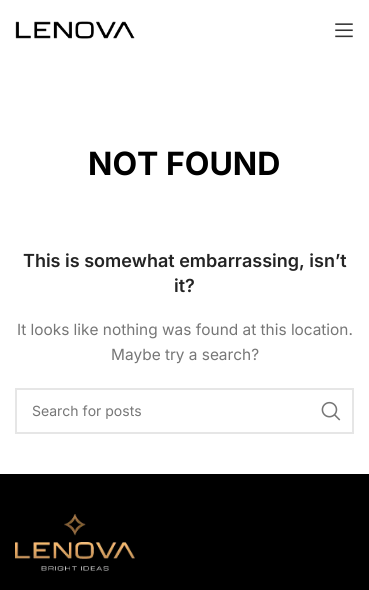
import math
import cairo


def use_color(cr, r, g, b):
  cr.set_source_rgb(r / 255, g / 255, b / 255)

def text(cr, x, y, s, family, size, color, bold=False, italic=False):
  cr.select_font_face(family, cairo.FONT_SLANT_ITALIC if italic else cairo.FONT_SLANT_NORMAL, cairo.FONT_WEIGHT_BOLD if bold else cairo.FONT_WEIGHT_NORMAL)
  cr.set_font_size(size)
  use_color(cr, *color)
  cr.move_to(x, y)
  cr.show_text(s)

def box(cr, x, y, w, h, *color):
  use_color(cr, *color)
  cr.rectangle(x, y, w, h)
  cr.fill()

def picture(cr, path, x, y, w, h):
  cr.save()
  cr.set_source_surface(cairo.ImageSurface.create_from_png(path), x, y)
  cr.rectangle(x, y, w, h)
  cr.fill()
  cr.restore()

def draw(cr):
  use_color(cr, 255, 255, 255)
  cr.paint()
  picture(cr, "img_01.png", 15, 21, 120, 18)
  picture(cr, "img_02.png", 335, 23, 18, 15)
  cr.rectangle(16, 389, 337, 44)
  use_color(cr, 230, 230, 230)
  cr.stroke()
  picture(cr, "img_03.png", 321, 401, 20, 20)
  box(cr, 0, 474, 369, 116, 0, 0, 0)
  picture(cr, "img_04.png", 15, 514, 120, 57)
  text(cr, 88, 175, "NOT FOUND", "Inter", 32, (0, 0, 0), bold=True)
  text(cr, 23, 267, "This is somewhat embarrassing, isn’t", "Inter SemiBold", 18, (36, 36, 36))
  text(cr, 174, 292, "it?", "Inter SemiBold", 18, (36, 36, 36))
  text(cr, 17, 335, "It looks like nothing was found at this location.", "Inter", 15.4, (118, 118, 118))
  text(cr, 111, 360, "Maybe try a search?", "Inter", 15.4, (118, 118, 118))
  text(cr, 32, 416, "Search for posts", "Inter", 14, (118, 118, 118))


surface = cairo.ImageSurface(cairo.FORMAT_RGB24, 369, 590)
cr = cairo.Context(surface)
options = cairo.FontOptions()
options.set_hint_metrics(cairo.HINT_METRICS_OFF)
options.set_hint_style(cairo.HINT_STYLE_NONE)
cr.set_font_options(options)
cr.set_miter_limit(4)
draw(cr)
surface.write_to_png("out.png")
